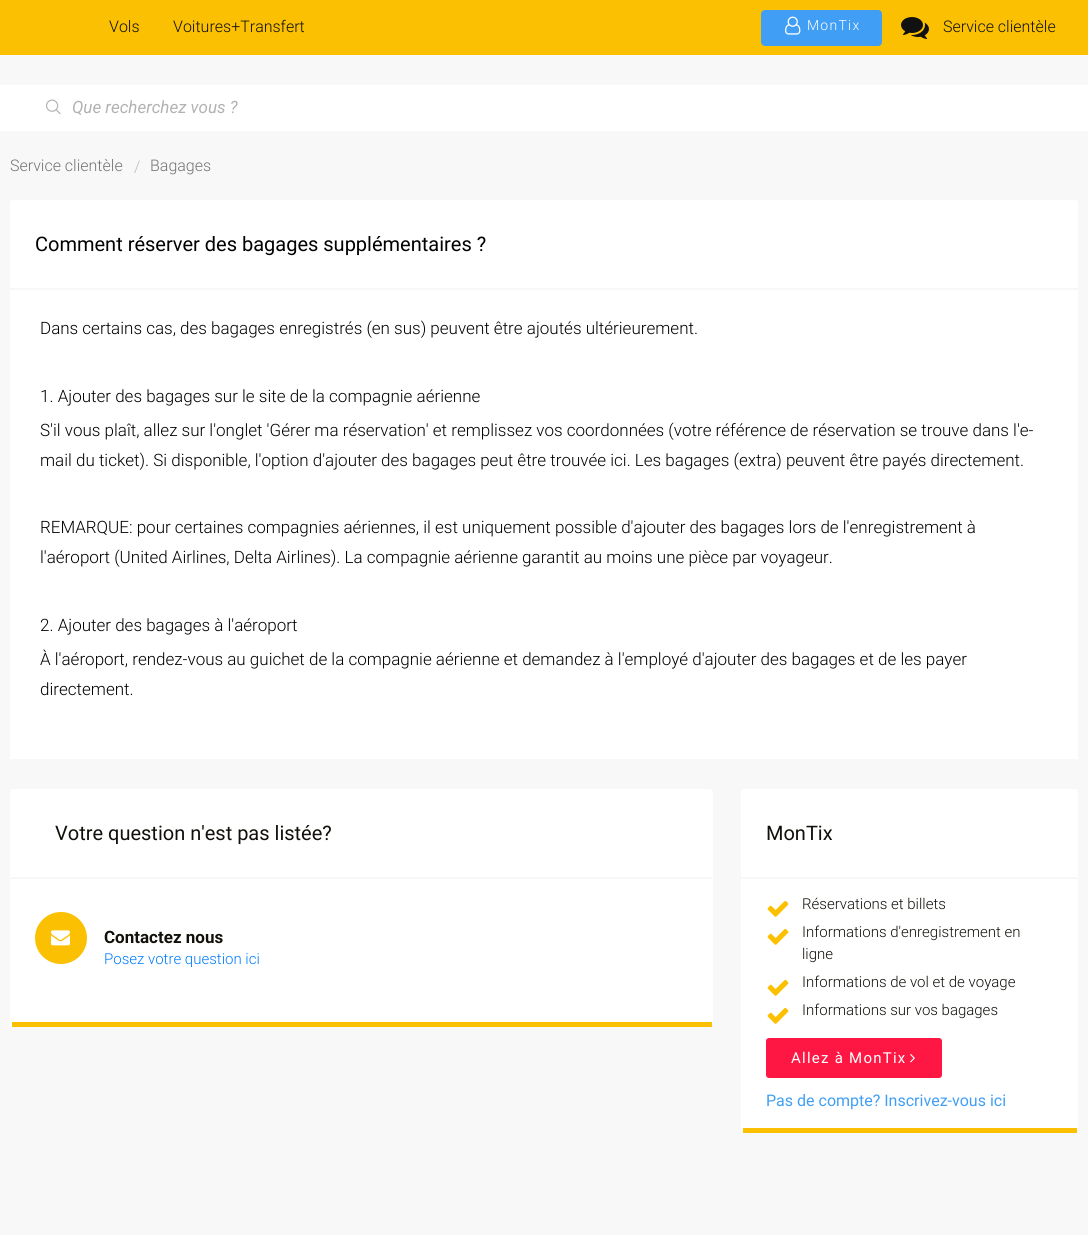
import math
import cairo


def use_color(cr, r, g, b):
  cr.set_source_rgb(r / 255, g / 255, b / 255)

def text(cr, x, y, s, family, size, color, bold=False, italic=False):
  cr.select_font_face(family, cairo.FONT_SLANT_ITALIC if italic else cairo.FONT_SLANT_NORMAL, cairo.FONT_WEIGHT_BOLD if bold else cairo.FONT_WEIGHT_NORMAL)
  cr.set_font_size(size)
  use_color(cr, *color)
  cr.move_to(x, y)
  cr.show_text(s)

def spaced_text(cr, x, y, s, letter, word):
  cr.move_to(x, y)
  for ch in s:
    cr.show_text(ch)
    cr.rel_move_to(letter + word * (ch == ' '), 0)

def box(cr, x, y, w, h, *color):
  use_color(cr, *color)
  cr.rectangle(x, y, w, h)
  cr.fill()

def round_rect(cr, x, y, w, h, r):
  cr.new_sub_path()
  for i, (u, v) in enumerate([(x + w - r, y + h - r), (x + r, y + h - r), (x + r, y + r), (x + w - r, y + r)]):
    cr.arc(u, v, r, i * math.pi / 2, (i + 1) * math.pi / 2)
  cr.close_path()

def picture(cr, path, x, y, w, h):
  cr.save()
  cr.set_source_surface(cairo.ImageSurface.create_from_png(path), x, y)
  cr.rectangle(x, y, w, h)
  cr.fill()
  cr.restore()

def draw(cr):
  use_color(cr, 248, 248, 248)
  cr.paint()
  box(cr, 0, 0, 1088, 55, 252, 192, 2)
  use_color(cr, 64, 158, 245)
  round_rect(cr, 761, 10, 121, 36, 4)
  cr.fill()
  picture(cr, "img_01.png", 785, 16, 16, 19)
  picture(cr, "img_02.png", 901, 17, 28, 22)
  box(cr, 0, 85, 1088, 46, 255, 255, 255)
  picture(cr, "img_03.png", 46, 99, 15, 15)
  cr.new_path()
  cr.move_to(13, 200)
  cr.line_to(1075, 200)
  cr.curve_to(1076.5, 200, 1078, 201.5, 1078, 203)
  cr.line_to(1078, 290)
  cr.line_to(10, 290)
  cr.line_to(10, 203)
  cr.curve_to(10, 201.5, 11.5, 200, 13, 200)
  cr.close_path()
  cr.fill()
  box(cr, 10, 288, 1068, 2, 248, 248, 248)
  box(cr, 10, 290, 1068, 469, 255, 255, 255)
  round_rect(cr, 10, 789, 703, 238, 3)
  cr.fill()
  box(cr, 12, 1022, 700, 5, 252, 192, 2)
  box(cr, 10, 877, 703, 2, 248, 248, 248)
  use_color(cr, 252, 192, 2)
  cr.arc(61, 938, 26, 0, 2 * math.pi)
  cr.fill()
  picture(cr, "img_04.png", 51, 930, 19, 16)
  use_color(cr, 255, 255, 255)
  round_rect(cr, 741, 789, 337, 344, 3)
  cr.fill()
  box(cr, 743, 1128, 334, 5, 252, 192, 2)
  box(cr, 741, 877, 337, 2, 248, 248, 248)
  picture(cr, "img_05.png", 767, 900, 22, 17)
  picture(cr, "img_05.png", 767, 928, 22, 17)
  picture(cr, "img_05.png", 767, 979, 22, 17)
  picture(cr, "img_05.png", 767, 1007, 22, 17)
  use_color(cr, 255, 23, 68)
  round_rect(cr, 766, 1038, 176, 40, 3)
  cr.fill()
  picture(cr, "img_06.png", 910, 1054, 5, 9)
  text(cr, 109, 32, "Vols", "Roboto Light", 16, (17, 17, 17))
  text(cr, 173, 32, "Voitures+Transfert", "Roboto Light", 16, (17, 17, 17))
  cr.set_font_size(14)
  use_color(cr, 255, 255, 255)
  spaced_text(cr, 807, 30, "MonTix", 1.25, 0)
  text(cr, 943, 32, "Service clientèle", "Roboto Light", 16, (17, 17, 17))
  text(cr, 72, 113, "Que recherchez vous ?", "Roboto", 17, (178, 178, 178), italic=True)
  text(cr, 10, 171, "Service clientèle", "Roboto Light", 16, (116, 116, 116))
  text(cr, 134, 172, "/", "Roboto Light", 16, (187, 187, 187))
  text(cr, 150, 171, "Bagages", "Roboto Light", 16, (116, 116, 116))
  text(cr, 35, 251, "Comment réserver des bagages supplémentaires ?", "Roboto", 20, (0, 0, 0))
  text(cr, 40, 334, "Dans certains cas, des bagages enregistrés (en sus) peuvent être ajoutés ultérieurement.", "Roboto Light", 17, (0, 0, 0))
  text(cr, 40, 402, "1. Ajouter des bagages sur le site de la compagnie aérienne", "Roboto Light", 17, (0, 0, 0))
  text(cr, 40, 436, "S'il vous plaît, allez sur l'onglet 'Gérer ma réservation' et remplissez vos coordonnées (votre référence de réservation se trouve dans l'e-", "Roboto Light", 17, (0, 0, 0))
  text(cr, 40, 466, "mail du ticket). Si disponible, l'option d'ajouter des bagages peut être trouvée ici. Les bagages (extra) peuvent être payés directement.", "Roboto Light", 17, (0, 0, 0))
  text(cr, 40, 533, "REMARQUE: pour certaines compagnies aériennes, il est uniquement possible d'ajouter des bagages lors de l'enregistrement à", "Roboto Light", 17, (0, 0, 0))
  text(cr, 40, 563, "l'aéroport (United Airlines, Delta Airlines). La compagnie aérienne garantit au moins une pièce par voyageur.", "Roboto Light", 17, (0, 0, 0))
  text(cr, 40, 631, "2. Ajouter des bagages à l'aéroport", "Roboto Light", 17, (0, 0, 0))
  text(cr, 40, 665, "À l'aéroport, rendez-vous au guichet de la compagnie aérienne et demandez à l'employé d'ajouter des bagages et de les payer", "Roboto Light", 17, (0, 0, 0))
  text(cr, 40, 695, "directement.", "Roboto Light", 17, (0, 0, 0))
  text(cr, 55, 840, "Votre question n'est pas listée?", "Roboto", 20, (18, 16, 11))
  text(cr, 104, 943, "Contactez nous", "Roboto", 17, (18, 16, 11), bold=True)
  text(cr, 104, 964, "Posez votre question ici", "Roboto Light", 15, (0, 123, 255))
  text(cr, 766, 840, "MonTix", "Roboto", 20, (18, 16, 11))
  text(cr, 802, 909, "Réservations et billets", "Roboto Light", 15, (18, 16, 11))
  text(cr, 802, 937, "Informations d'enregistrement en", "Roboto Light", 15, (18, 16, 11))
  text(cr, 802, 959, "ligne", "Roboto Light", 15, (18, 16, 11))
  text(cr, 802, 987, "Informations de vol et de voyage", "Roboto Light", 15, (18, 16, 11))
  text(cr, 802, 1015, "Informations sur vos bagages", "Roboto Light", 15, (18, 16, 11))
  cr.select_font_face("Roboto")
  use_color(cr, 255, 255, 255)
  spaced_text(cr, 791, 1063, "Allez à MonTix", 1.25, 0)
  text(cr, 766, 1106, "Pas de compte? Inscrivez-vous ici", "Roboto", 16, (64, 159, 244))


surface = cairo.ImageSurface(cairo.FORMAT_RGB24, 1088, 1235)
cr = cairo.Context(surface)
options = cairo.FontOptions()
options.set_hint_metrics(cairo.HINT_METRICS_OFF)
options.set_hint_style(cairo.HINT_STYLE_NONE)
cr.set_font_options(options)
cr.set_miter_limit(4)
draw(cr)
surface.write_to_png("out.png")
